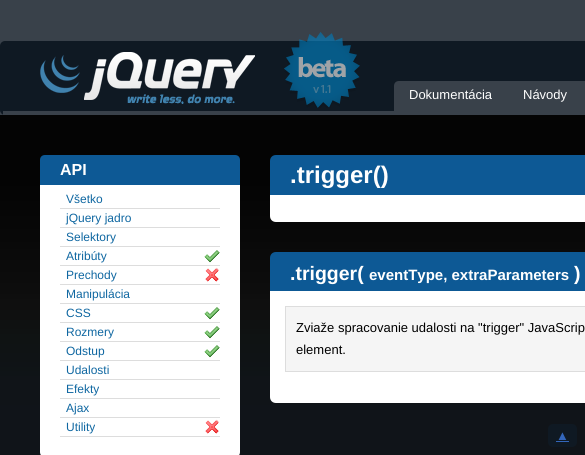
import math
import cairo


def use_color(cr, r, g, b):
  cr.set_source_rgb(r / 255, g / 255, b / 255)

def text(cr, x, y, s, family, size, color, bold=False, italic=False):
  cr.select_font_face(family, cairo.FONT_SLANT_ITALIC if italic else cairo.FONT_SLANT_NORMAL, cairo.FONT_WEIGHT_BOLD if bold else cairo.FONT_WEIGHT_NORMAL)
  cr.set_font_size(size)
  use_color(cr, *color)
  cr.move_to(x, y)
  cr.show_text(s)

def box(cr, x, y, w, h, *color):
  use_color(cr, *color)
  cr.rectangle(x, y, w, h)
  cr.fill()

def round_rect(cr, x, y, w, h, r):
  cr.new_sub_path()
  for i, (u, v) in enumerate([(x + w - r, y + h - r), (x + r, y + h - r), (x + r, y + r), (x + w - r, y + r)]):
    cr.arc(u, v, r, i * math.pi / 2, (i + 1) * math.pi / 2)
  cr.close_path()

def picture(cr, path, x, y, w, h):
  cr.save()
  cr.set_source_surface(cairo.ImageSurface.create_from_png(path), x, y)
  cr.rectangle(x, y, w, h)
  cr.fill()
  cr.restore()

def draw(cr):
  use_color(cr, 57, 65, 74)
  cr.paint()
  use_color(cr, 15, 25, 35)
  round_rect(cr, 0, 41, 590, 74, 5)
  cr.fill()
  box(cr, 3, 111, 582, 4, 57, 65, 74)
  picture(cr, "img_01.png", 40, 52, 215, 52)
  picture(cr, "img_02.png", 284, 32, 76, 76)
  cr.new_path()
  cr.move_to(399, 81)
  cr.line_to(585, 81)
  cr.curve_to(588, 81, 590, 83, 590, 86)
  cr.line_to(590, 114)
  cr.line_to(394, 114)
  cr.line_to(394, 86)
  cr.curve_to(394, 83, 396, 81, 399, 81)
  cr.close_path()
  cr.fill()
  picture(cr, "img_03.png", 0, 115, 585, 340)
  use_color(cr, 13, 89, 149)
  cr.new_path()
  cr.move_to(45, 155)
  cr.line_to(235, 155)
  cr.curve_to(238, 155, 240, 157, 240, 160)
  cr.line_to(240, 185)
  cr.line_to(40, 185)
  cr.line_to(40, 160)
  cr.curve_to(40, 157, 42, 155, 45, 155)
  cr.close_path()
  cr.fill()
  use_color(cr, 255, 255, 255)
  cr.new_path()
  cr.move_to(40, 185)
  cr.line_to(240, 185)
  cr.line_to(240, 452)
  cr.curve_to(240, 455, 238, 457, 235, 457)
  cr.line_to(45, 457)
  cr.curve_to(42, 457, 40, 455, 40, 452)
  cr.close_path()
  cr.fill()
  box(cr, 60, 208, 160, 1, 221, 221, 221)
  box(cr, 60, 227, 160, 1, 221, 221, 221)
  box(cr, 60, 246, 160, 1, 221, 221, 221)
  picture(cr, "img_04.png", 204, 250, 16, 13)
  box(cr, 60, 265, 160, 1, 221, 221, 221)
  picture(cr, "img_05.png", 205, 267, 14, 15)
  box(cr, 60, 284, 160, 1, 221, 221, 221)
  box(cr, 60, 303, 160, 1, 221, 221, 221)
  picture(cr, "img_04.png", 204, 307, 16, 13)
  box(cr, 60, 322, 160, 1, 221, 221, 221)
  picture(cr, "img_04.png", 204, 326, 16, 13)
  box(cr, 60, 341, 160, 1, 221, 221, 221)
  picture(cr, "img_04.png", 204, 345, 16, 13)
  box(cr, 60, 360, 160, 1, 221, 221, 221)
  box(cr, 60, 379, 160, 1, 221, 221, 221)
  box(cr, 60, 398, 160, 1, 221, 221, 221)
  box(cr, 60, 417, 160, 1, 221, 221, 221)
  picture(cr, "img_05.png", 205, 419, 14, 15)
  box(cr, 60, 436, 160, 1, 221, 221, 221)
  use_color(cr, 13, 89, 149)
  cr.new_path()
  cr.move_to(276, 155)
  cr.line_to(585, 155)
  cr.curve_to(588.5, 155, 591, 157.5, 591, 161)
  cr.line_to(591, 195)
  cr.line_to(270, 195)
  cr.line_to(270, 161)
  cr.curve_to(270, 157.5, 272.5, 155, 276, 155)
  cr.close_path()
  cr.fill()
  use_color(cr, 255, 255, 255)
  cr.new_path()
  cr.move_to(270, 195)
  cr.line_to(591, 195)
  cr.line_to(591, 216)
  cr.curve_to(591, 219.5, 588.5, 222, 585, 222)
  cr.line_to(276, 222)
  cr.curve_to(272.5, 222, 270, 219.5, 270, 216)
  cr.close_path()
  cr.fill()
  use_color(cr, 13, 89, 149)
  cr.new_path()
  cr.move_to(276, 252)
  cr.line_to(585, 252)
  cr.curve_to(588.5, 252, 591, 254.5, 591, 258)
  cr.line_to(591, 291)
  cr.line_to(270, 291)
  cr.line_to(270, 258)
  cr.curve_to(270, 254.5, 272.5, 252, 276, 252)
  cr.close_path()
  cr.fill()
  use_color(cr, 255, 255, 255)
  cr.new_path()
  cr.move_to(270, 291)
  cr.line_to(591, 291)
  cr.line_to(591, 397)
  cr.curve_to(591, 400.5, 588.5, 403, 585, 403)
  cr.line_to(276, 403)
  cr.curve_to(272.5, 403, 270, 400.5, 270, 397)
  cr.close_path()
  cr.fill()
  use_color(cr, 245, 245, 245)
  cr.rectangle(285.5, 306.5, 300, 65)
  cr.fill_preserve()
  use_color(cr, 221, 221, 221)
  cr.set_line_width(1)
  cr.stroke()
  use_color(cr, 15, 25, 35)
  round_rect(cr, 548, 424, 29, 23, 5)
  cr.fill()
  box(cr, 556, 441, 13, 1, 51, 102, 187)
  text(cr, 409, 99, "Dokumentácia", "Liberation Sans", 13, (255, 255, 255))
  text(cr, 523, 99, "Návody", "Liberation Sans", 13, (255, 255, 255))
  text(cr, 60, 175, "API", "Liberation Sans", 16, (255, 255, 255), bold=True)
  text(cr, 66, 203, "Všetko", "Liberation Sans", 12, (15, 103, 161))
  text(cr, 66, 222, "jQuery jadro", "Liberation Sans", 12, (15, 103, 161))
  text(cr, 66, 241, "Selektory", "Liberation Sans", 12, (15, 103, 161))
  text(cr, 66, 260, "Atribúty", "Liberation Sans", 12, (15, 103, 161))
  text(cr, 66, 279, "Prechody", "Liberation Sans", 12, (15, 103, 161))
  text(cr, 66, 298, "Manipulácia", "Liberation Sans", 12, (15, 103, 161))
  text(cr, 66, 317, "CSS", "Liberation Sans", 12, (15, 103, 161))
  text(cr, 66, 336, "Rozmery", "Liberation Sans", 12, (15, 103, 161))
  text(cr, 66, 355, "Odstup", "Liberation Sans", 12, (15, 103, 161))
  text(cr, 66, 374, "Udalosti", "Liberation Sans", 12, (15, 103, 161))
  text(cr, 66, 393, "Efekty", "Liberation Sans", 12, (15, 103, 161))
  text(cr, 66, 412, "Ajax", "Liberation Sans", 12, (15, 103, 161))
  text(cr, 66, 431, "Utility", "Liberation Sans", 12, (15, 103, 161))
  text(cr, 290, 183, ".trigger()", "Liberation Sans", 24, (255, 255, 255), bold=True)
  text(cr, 290, 280, ".trigger(", "Liberation Sans", 19.5, (255, 255, 255), bold=True)
  text(cr, 369, 280, "eventType, extraParameters", "Liberation Sans", 15, (255, 255, 255), bold=True)
  text(cr, 574, 280, ")", "Liberation Sans", 19.5, (255, 255, 255), bold=True)
  text(cr, 296, 332, "Zviaže spracovanie udalosti na \"trigger\" JavaScrip", "Liberation Sans", 13, (0, 0, 0))
  text(cr, 296, 354, "element.", "Liberation Sans", 13, (0, 0, 0))
  text(cr, 556, 440, "▲", "Liberation Sans", 13, (51, 102, 187))


surface = cairo.ImageSurface(cairo.FORMAT_RGB24, 585, 455)
cr = cairo.Context(surface)
options = cairo.FontOptions()
options.set_hint_metrics(cairo.HINT_METRICS_OFF)
options.set_hint_style(cairo.HINT_STYLE_NONE)
cr.set_font_options(options)
cr.set_miter_limit(4)
draw(cr)
surface.write_to_png("out.png")
